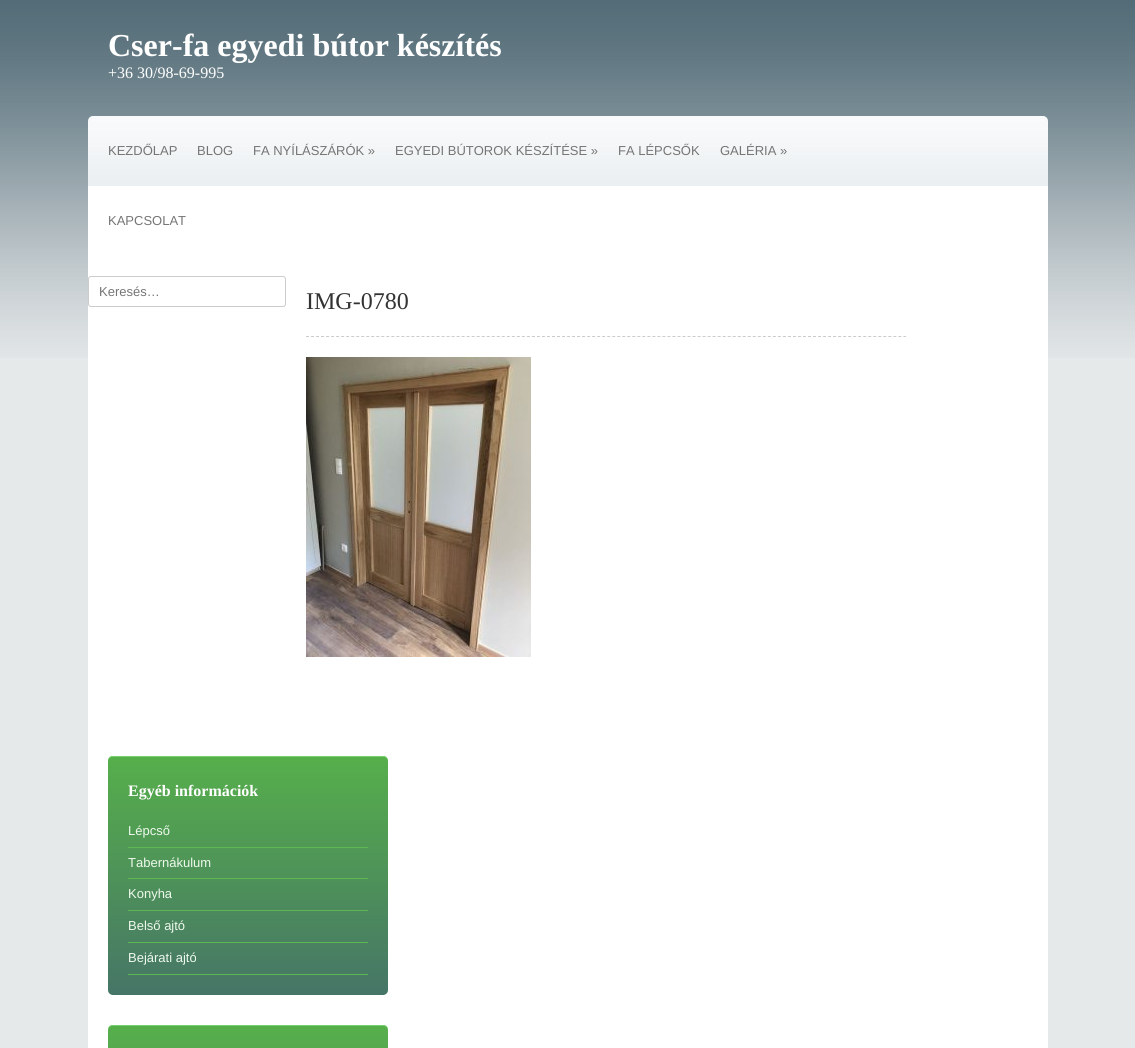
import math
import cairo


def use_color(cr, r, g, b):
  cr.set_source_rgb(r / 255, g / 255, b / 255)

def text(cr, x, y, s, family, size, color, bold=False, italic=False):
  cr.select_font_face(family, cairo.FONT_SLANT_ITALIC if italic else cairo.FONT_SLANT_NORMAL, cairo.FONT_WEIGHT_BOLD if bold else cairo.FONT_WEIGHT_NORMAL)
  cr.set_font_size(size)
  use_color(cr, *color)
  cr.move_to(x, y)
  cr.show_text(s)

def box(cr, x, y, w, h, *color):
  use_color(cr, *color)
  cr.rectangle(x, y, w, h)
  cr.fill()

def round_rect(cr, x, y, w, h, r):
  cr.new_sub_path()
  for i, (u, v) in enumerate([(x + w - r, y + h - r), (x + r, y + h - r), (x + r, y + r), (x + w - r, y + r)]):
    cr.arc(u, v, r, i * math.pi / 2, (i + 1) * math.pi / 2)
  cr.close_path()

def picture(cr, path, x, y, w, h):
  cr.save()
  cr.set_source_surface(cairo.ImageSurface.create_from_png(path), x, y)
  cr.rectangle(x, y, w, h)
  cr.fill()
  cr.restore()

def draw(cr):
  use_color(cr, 230, 233, 234)
  cr.paint()
  picture(cr, "img_01.png", 0, 0, 1135, 358)
  picture(cr, "img_02.png", 88, 116, 960, 70)
  box(cr, 88, 186, 960, 862, 255, 255, 255)
  round_rect(cr, 88.5, 276.5, 197, 30, 2.5)
  use_color(cr, 204, 204, 204)
  cr.set_line_width(1)
  cr.stroke()
  cr.new_path()
  cr.move_to(306, 336.5)
  cr.line_to(906, 336.5)
  cr.set_dash([3, 2.02])
  cr.stroke()
  picture(cr, "img_03.png", 306, 357, 225, 300)
  gradient = cairo.LinearGradient(248, 995, 248, 756)
  gradient.add_color_stop_rgba(0, 0.275, 0.459, 0.404, 1)
  gradient.add_color_stop_rgba(1, 0.337, 0.686, 0.294, 1)
  cr.set_source(gradient)
  round_rect(cr, 108, 756, 280, 239, 5)
  cr.fill()
  use_color(cr, 117, 209, 107)
  cr.new_path()
  cr.move_to(113, 757)
  cr.line_to(383, 757)
  cr.curve_to(386, 757, 388, 759, 388, 762)
  cr.line_to(388, 761)
  cr.curve_to(388, 758, 386, 756, 383, 756)
  cr.line_to(113, 756)
  cr.curve_to(110, 756, 108, 758, 108, 761)
  cr.line_to(108, 762)
  cr.curve_to(108, 759, 110, 757, 113, 757)
  cr.close_path()
  cr.fill()
  box(cr, 128, 847, 240, 1, 94, 183, 82)
  box(cr, 128, 878, 240, 1, 94, 183, 82)
  box(cr, 128, 910, 240, 1, 94, 183, 82)
  box(cr, 128, 942, 240, 1, 94, 183, 82)
  box(cr, 128, 974, 240, 1, 94, 183, 82)
  gradient = cairo.LinearGradient(248, 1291, 248, 1025)
  gradient.add_color_stop_rgba(0, 0.275, 0.459, 0.404, 1)
  gradient.add_color_stop_rgba(1, 0.337, 0.686, 0.294, 1)
  cr.set_source(gradient)
  round_rect(cr, 108, 1025, 280, 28, 5)
  cr.fill()
  use_color(cr, 117, 209, 107)
  cr.new_path()
  cr.move_to(113, 1026)
  cr.line_to(383, 1026)
  cr.curve_to(386, 1026, 388, 1028, 388, 1031)
  cr.line_to(388, 1030)
  cr.curve_to(388, 1027, 386, 1025, 383, 1025)
  cr.line_to(113, 1025)
  cr.curve_to(110, 1025, 108, 1027, 108, 1030)
  cr.line_to(108, 1031)
  cr.curve_to(108, 1028, 110, 1026, 113, 1026)
  cr.close_path()
  cr.fill()
  text(cr, 108, 56, "Cser-fa egyedi bútor készítés", "Liberation Serif", 32, (255, 255, 255), bold=True)
  text(cr, 108, 78, "+36 30/98-69-995", "Liberation Serif", 16, (255, 255, 255))
  text(cr, 108, 155, "KEZDŐLAP", "Liberation Sans", 13, (117, 117, 117))
  text(cr, 197, 155, "BLOG", "Liberation Sans", 13, (117, 117, 117))
  text(cr, 253, 155, "FA NYÍLÁSZÁRÓK »", "Liberation Sans", 13, (117, 117, 117))
  text(cr, 395, 155, "EGYEDI BÚTOROK KÉSZÍTÉSE »", "Liberation Sans", 13, (117, 117, 117))
  text(cr, 618, 155, "FA LÉPCSŐK", "Liberation Sans", 13, (117, 117, 117))
  text(cr, 720, 155, "GALÉRIA »", "Liberation Sans", 13, (117, 117, 117))
  text(cr, 108, 225, "KAPCSOLAT", "Liberation Sans", 13, (117, 117, 117))
  text(cr, 99, 296, "Keresés…", "Liberation Sans", 13, (117, 117, 117))
  text(cr, 306, 309, "IMG-0780", "Liberation Serif", 24, (51, 51, 51))
  text(cr, 128, 796, "Egyéb információk", "Liberation Serif", 16, (255, 255, 255), bold=True)
  text(cr, 128, 835, "Lépcső", "Liberation Sans", 13, (238, 249, 237))
  text(cr, 128, 867, "Tabernákulum", "Liberation Sans", 13, (238, 249, 237))
  text(cr, 128, 898, "Konyha", "Liberation Sans", 13, (238, 249, 237))
  text(cr, 128, 930, "Belső ajtó", "Liberation Sans", 13, (238, 249, 237))
  text(cr, 128, 962, "Bejárati ajtó", "Liberation Sans", 13, (238, 249, 237))


surface = cairo.ImageSurface(cairo.FORMAT_RGB24, 1135, 1048)
cr = cairo.Context(surface)
options = cairo.FontOptions()
options.set_hint_metrics(cairo.HINT_METRICS_OFF)
options.set_hint_style(cairo.HINT_STYLE_NONE)
cr.set_font_options(options)
cr.set_miter_limit(4)
draw(cr)
surface.write_to_png("out.png")
